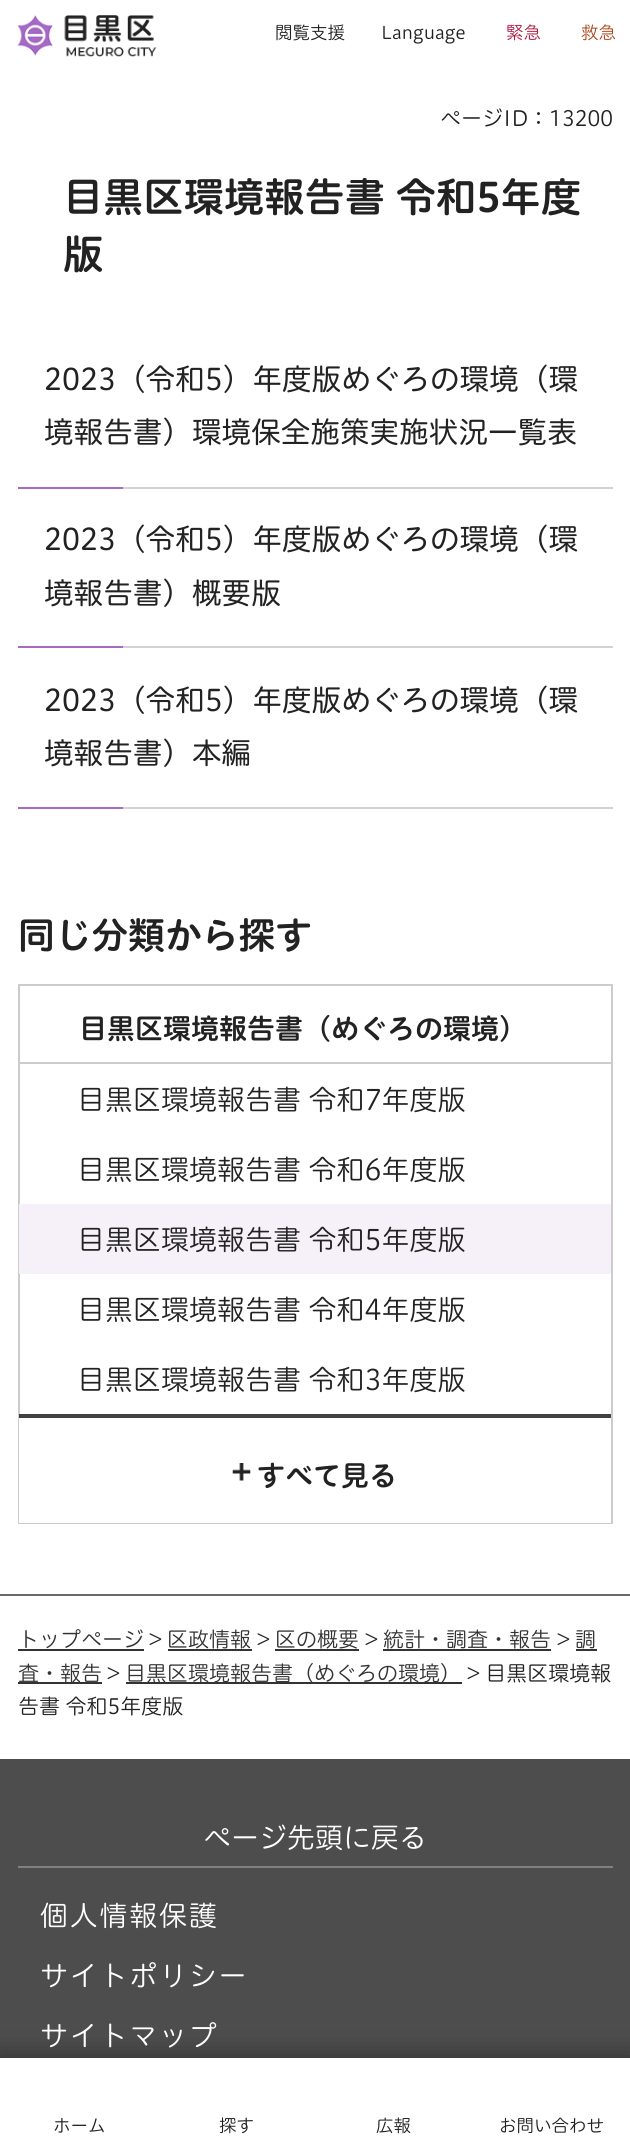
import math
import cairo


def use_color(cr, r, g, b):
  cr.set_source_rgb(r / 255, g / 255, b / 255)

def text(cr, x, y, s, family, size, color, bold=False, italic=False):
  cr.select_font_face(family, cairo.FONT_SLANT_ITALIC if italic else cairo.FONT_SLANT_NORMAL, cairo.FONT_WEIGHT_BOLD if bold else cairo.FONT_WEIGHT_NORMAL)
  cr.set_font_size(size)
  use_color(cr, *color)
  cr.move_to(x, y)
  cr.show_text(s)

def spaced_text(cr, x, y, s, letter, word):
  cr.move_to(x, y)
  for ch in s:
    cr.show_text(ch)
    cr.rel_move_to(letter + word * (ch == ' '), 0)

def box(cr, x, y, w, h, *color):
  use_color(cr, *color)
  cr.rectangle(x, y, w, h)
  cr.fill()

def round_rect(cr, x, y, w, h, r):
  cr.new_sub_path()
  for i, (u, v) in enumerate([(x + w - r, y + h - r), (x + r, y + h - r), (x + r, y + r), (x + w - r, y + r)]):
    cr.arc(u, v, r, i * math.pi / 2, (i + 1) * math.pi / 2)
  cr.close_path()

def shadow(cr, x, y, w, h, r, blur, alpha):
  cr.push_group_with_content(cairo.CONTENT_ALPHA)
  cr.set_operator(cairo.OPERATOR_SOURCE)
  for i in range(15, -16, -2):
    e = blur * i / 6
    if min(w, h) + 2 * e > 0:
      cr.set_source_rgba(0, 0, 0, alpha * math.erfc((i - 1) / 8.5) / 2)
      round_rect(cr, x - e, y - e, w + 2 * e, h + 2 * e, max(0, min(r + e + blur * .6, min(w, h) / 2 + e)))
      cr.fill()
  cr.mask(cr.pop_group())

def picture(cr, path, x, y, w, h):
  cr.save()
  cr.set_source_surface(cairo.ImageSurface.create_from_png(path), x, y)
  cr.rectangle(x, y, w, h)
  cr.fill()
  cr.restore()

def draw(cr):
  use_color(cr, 255, 255, 255)
  cr.paint()
  picture(cr, "img_01.png", 17, 15, 140, 42)
  box(cr, 123, 487, 490, 2, 210, 210, 210)
  box(cr, 18, 487, 105, 2, 165, 107, 197)
  box(cr, 123, 646, 490, 2, 210, 210, 210)
  box(cr, 18, 646, 105, 2, 165, 107, 197)
  box(cr, 123, 807, 490, 2, 210, 210, 210)
  box(cr, 18, 807, 105, 2, 165, 107, 197)
  cr.rectangle(19, 985, 593, 538)
  use_color(cr, 204, 204, 204)
  cr.stroke()
  box(cr, 19, 1062, 592, 2, 204, 204, 204)
  box(cr, 19, 1204, 592, 70, 246, 240, 249)
  box(cr, 19, 1414, 592, 4, 64, 64, 64)
  box(cr, 19, 1418, 592, 105, 255, 255, 255)
  picture(cr, "img_02.png", 232, 1463, 19, 18)
  box(cr, 0, 1594, 630, 2, 105, 105, 105)
  box(cr, 18, 1649, 126, 2, 51, 51, 51)
  box(cr, 168, 1649, 84, 2, 51, 51, 51)
  box(cr, 275, 1649, 84, 2, 51, 51, 51)
  box(cr, 383, 1649, 168, 2, 51, 51, 51)
  box(cr, 576, 1649, 21, 2, 51, 51, 51)
  box(cr, 18, 1682, 84, 2, 51, 51, 51)
  box(cr, 126, 1682, 336, 2, 51, 51, 51)
  box(cr, 0, 1759, 630, 299, 77, 77, 77)
  box(cr, 18, 1866, 595, 2, 128, 128, 128)
  use_color(cr, 0, 0, 0)
  shadow(cr, -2, 2056, 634, 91, 0, 12, 0.4)
  box(cr, 0, 2058, 630, 86, 255, 255, 255)
  text(cr, 275, 39, "閲覧支援", "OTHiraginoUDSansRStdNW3 Light", 17.5, (34, 34, 34))
  text(cr, 381, 39, "Language", "OTHiraginoUDSansRStdNW3 Light", 17.5, (34, 34, 34))
  text(cr, 506, 39, "緊急", "OTHiraginoUDSansRStdNW3 Light", 17.5, (172, 28, 69))
  text(cr, 581, 39, "救急", "OTHiraginoUDSansRStdNW3 Light", 17.5, (172, 72, 28))
  text(cr, 440, 126, "ページID：13200", "OTHiraginoUDSansRStdNW3 Light", 21, (34, 34, 34))
  text(cr, 63, 212, "目黒区環境報告書 令和5年度", "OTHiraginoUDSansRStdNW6 SemiBold", 40.25, (34, 34, 34))
  text(cr, 63, 269, "版", "OTHiraginoUDSansRStdNW6 SemiBold", 40.25, (34, 34, 34))
  text(cr, 44, 390, "2023（令和5）年度版めぐろの環境（環", "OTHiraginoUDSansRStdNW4", 29.6, (34, 34, 34))
  text(cr, 44, 443, "境報告書）環境保全施策実施状況一覧表", "OTHiraginoUDSansRStdNW4", 29.6, (34, 34, 34))
  text(cr, 44, 550, "2023（令和5）年度版めぐろの環境（環", "OTHiraginoUDSansRStdNW4", 29.6, (34, 34, 34))
  text(cr, 44, 604, "境報告書）概要版", "OTHiraginoUDSansRStdNW4", 29.6, (34, 34, 34))
  text(cr, 44, 711, "2023（令和5）年度版めぐろの環境（環", "OTHiraginoUDSansRStdNW4", 29.6, (34, 34, 34))
  text(cr, 44, 764, "境報告書）本編", "OTHiraginoUDSansRStdNW4", 29.6, (34, 34, 34))
  text(cr, 18, 949, "同じ分類から探す", "OTHiraginoUDSansRStdNW6 SemiBold", 36.75, (34, 34, 34))
  text(cr, 79, 1039, "目黒区環境報告書（めぐろの環境）", "OTHiraginoUDSansRStdNW6 SemiBold", 28, (34, 34, 34))
  text(cr, 77, 1110, "目黒区環境報告書 令和7年度版", "OTHiraginoUDSansRStdNW3 Light", 28, (34, 34, 34))
  text(cr, 77, 1180, "目黒区環境報告書 令和6年度版", "OTHiraginoUDSansRStdNW3 Light", 28, (34, 34, 34))
  text(cr, 77, 1250, "目黒区環境報告書 令和5年度版", "OTHiraginoUDSansRStdNW3 Light", 28, (34, 34, 34))
  text(cr, 77, 1320, "目黒区環境報告書 令和4年度版", "OTHiraginoUDSansRStdNW3 Light", 28, (34, 34, 34))
  text(cr, 77, 1390, "目黒区環境報告書 令和3年度版", "OTHiraginoUDSansRStdNW3 Light", 28, (34, 34, 34))
  text(cr, 257, 1486, "すべて見る", "OTHiraginoUDSansRStdNW6 SemiBold", 28, (34, 34, 34))
  text(cr, 18, 1647, "トップページ", "OTHiraginoUDSansRStdNW3 Light", 21, (51, 51, 51))
  text(cr, 149, 1647, ">", "OTHiraginoUDSansRStdNW3 Light", 21, (34, 34, 34))
  text(cr, 167, 1647, "区政情報", "OTHiraginoUDSansRStdNW3 Light", 21, (51, 51, 51))
  text(cr, 257, 1647, ">", "OTHiraginoUDSansRStdNW3 Light", 21, (34, 34, 34))
  text(cr, 275, 1647, "区の概要", "OTHiraginoUDSansRStdNW3 Light", 21, (51, 51, 51))
  text(cr, 365, 1647, ">", "OTHiraginoUDSansRStdNW3 Light", 21, (34, 34, 34))
  text(cr, 383, 1647, "統計・調査・報告", "OTHiraginoUDSansRStdNW3 Light", 21, (51, 51, 51))
  text(cr, 557, 1647, ">", "OTHiraginoUDSansRStdNW3 Light", 21, (34, 34, 34))
  text(cr, 575, 1647, "調", "OTHiraginoUDSansRStdNW3 Light", 21, (51, 51, 51))
  text(cr, 18, 1681, "査・報告", "OTHiraginoUDSansRStdNW3 Light", 21, (51, 51, 51))
  text(cr, 107, 1681, ">", "OTHiraginoUDSansRStdNW3 Light", 21, (34, 34, 34))
  text(cr, 125, 1681, "目黒区環境報告書（めぐろの環境）", "OTHiraginoUDSansRStdNW3 Light", 21, (51, 51, 51))
  text(cr, 467, 1681, "> 目黒区環境報", "OTHiraginoUDSansRStdNW3 Light", 21, (34, 34, 34))
  text(cr, 18, 1714, "告書 令和5年度版", "OTHiraginoUDSansRStdNW3 Light", 21, (34, 34, 34))
  text(cr, 203, 1848, "ページ先頭に戻る", "OTHiraginoUDSansRStdNW3 Light", 28, (255, 255, 255))
  spaced_text(cr, 40, 1926, "個人情報保護", 1.75, 0)
  spaced_text(cr, 40, 1986, "サイトポリシー", 1.75, 0)
  spaced_text(cr, 40, 2046, "サイトマップ", 1.75, 0)
  text(cr, 53, 2132, "ホーム", "OTHiraginoUDSansRStdNW3 Light", 17.5, (34, 34, 34))
  text(cr, 219, 2132, "探す", "OTHiraginoUDSansRStdNW3 Light", 17.5, (34, 34, 34))
  text(cr, 376, 2132, "広報", "OTHiraginoUDSansRStdNW3 Light", 17.5, (34, 34, 34))
  text(cr, 499, 2132, "お問い合わせ", "OTHiraginoUDSansRStdNW3 Light", 17.5, (34, 34, 34))


surface = cairo.ImageSurface(cairo.FORMAT_RGB24, 630, 2144)
cr = cairo.Context(surface)
options = cairo.FontOptions()
options.set_hint_metrics(cairo.HINT_METRICS_OFF)
options.set_hint_style(cairo.HINT_STYLE_NONE)
cr.set_font_options(options)
cr.set_miter_limit(4)
draw(cr)
surface.write_to_png("out.png")
